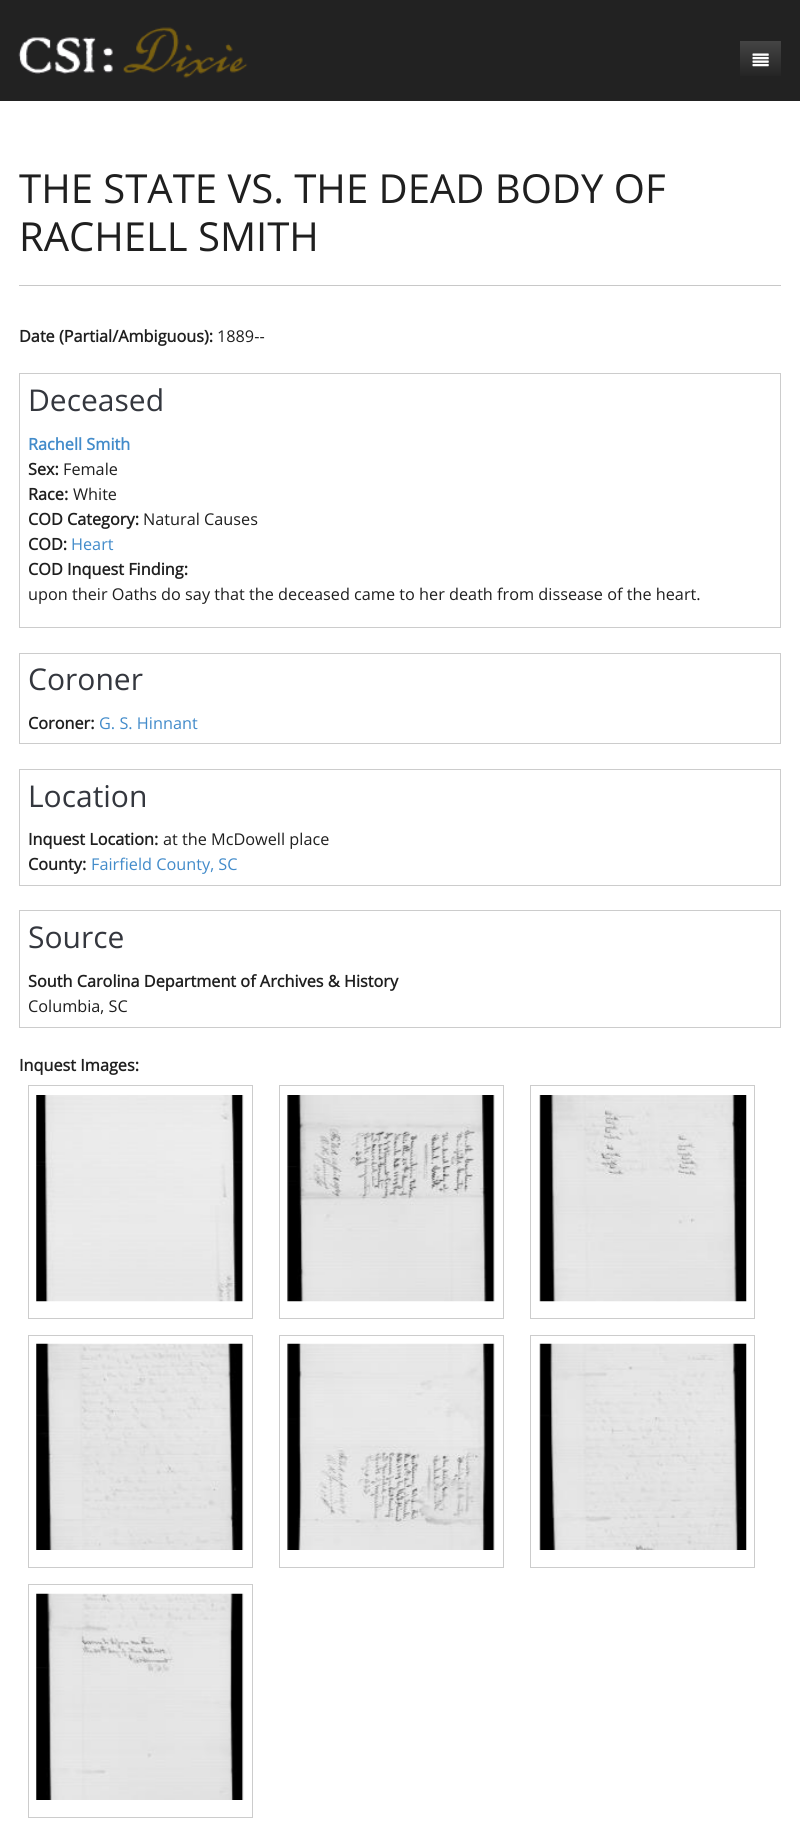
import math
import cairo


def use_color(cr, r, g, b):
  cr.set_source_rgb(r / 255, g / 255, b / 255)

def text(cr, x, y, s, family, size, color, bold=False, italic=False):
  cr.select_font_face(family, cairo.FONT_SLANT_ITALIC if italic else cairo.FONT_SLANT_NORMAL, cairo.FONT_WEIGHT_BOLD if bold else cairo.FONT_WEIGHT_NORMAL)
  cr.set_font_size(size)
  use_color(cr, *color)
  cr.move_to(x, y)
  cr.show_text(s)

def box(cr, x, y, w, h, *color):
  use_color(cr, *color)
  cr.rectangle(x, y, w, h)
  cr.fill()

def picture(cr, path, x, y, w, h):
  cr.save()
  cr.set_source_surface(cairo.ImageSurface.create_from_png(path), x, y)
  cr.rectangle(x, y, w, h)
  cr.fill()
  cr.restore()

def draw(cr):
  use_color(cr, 255, 255, 255)
  cr.paint()
  box(cr, 0, 0, 800, 101, 34, 34, 34)
  picture(cr, "img_01.png", 18, 27, 230, 51)
  gradient = cairo.LinearGradient(761, 41, 761, 79)
  gradient.add_color_stop_rgba(0, 0.267, 0.267, 0.267, 1)
  gradient.add_color_stop_rgba(1, 0.133, 0.133, 0.133, 1)
  cr.set_source(gradient)
  cr.rectangle(740, 41, 41, 35)
  cr.fill()
  picture(cr, "img_02.png", 752, 53, 17, 14)
  box(cr, 19, 285, 762, 1, 200, 200, 200)
  cr.rectangle(19.5, 373.5, 761, 254)
  use_color(cr, 204, 204, 204)
  cr.set_line_width(1)
  cr.stroke()
  cr.rectangle(19.5, 653.5, 761, 90)
  cr.stroke()
  cr.rectangle(19.5, 769.5, 761, 116)
  cr.stroke()
  cr.rectangle(19.5, 910.5, 761, 117)
  cr.stroke()
  cr.rectangle(28.5, 1085.5, 224, 233)
  cr.stroke()
  picture(cr, "img_03.png", 36, 1095, 208, 207)
  cr.rectangle(279.5, 1085.5, 224, 233)
  cr.stroke()
  picture(cr, "img_04.png", 287, 1095, 208, 207)
  cr.rectangle(530.5, 1085.5, 224, 233)
  cr.stroke()
  picture(cr, "img_05.png", 539, 1095, 208, 207)
  cr.rectangle(28.5, 1335.5, 224, 232)
  cr.stroke()
  picture(cr, "img_06.png", 36, 1343, 208, 207)
  cr.rectangle(279.5, 1335.5, 224, 232)
  cr.stroke()
  picture(cr, "img_07.png", 287, 1343, 208, 207)
  cr.rectangle(530.5, 1335.5, 224, 232)
  cr.stroke()
  picture(cr, "img_08.png", 539, 1343, 208, 207)
  cr.rectangle(28.5, 1584.5, 224, 233)
  cr.stroke()
  picture(cr, "img_09.png", 36, 1593, 208, 207)
  text(cr, 19, 203, "THE STATE VS. THE DEAD BODY OF", "Open Sans", 40, (31, 31, 31))
  text(cr, 19, 251, "RACHELL SMITH", "Open Sans", 40, (31, 31, 31))
  text(cr, 19, 342, "Date (Partial/Ambiguous):", "Open Sans", 16.25, (31, 31, 31), bold=True)
  text(cr, 217, 342, "1889--", "Open Sans", 16.25, (31, 31, 31))
  text(cr, 28, 411, "Deceased", "Open Sans", 30, (52, 55, 62))
  text(cr, 28, 450, "Rachell Smith", "Open Sans", 16.25, (66, 139, 202), bold=True)
  text(cr, 28, 475, "Sex:", "Open Sans", 16.25, (31, 31, 31), bold=True)
  text(cr, 63, 475, "Female", "Open Sans", 16.25, (31, 31, 31))
  text(cr, 28, 500, "Race:", "Open Sans", 16.25, (31, 31, 31), bold=True)
  text(cr, 73, 500, "White", "Open Sans", 16.25, (31, 31, 31))
  text(cr, 28, 525, "COD Category:", "Open Sans", 16.25, (31, 31, 31), bold=True)
  text(cr, 143, 525, "Natural Causes", "Open Sans", 16.25, (31, 31, 31))
  text(cr, 28, 550, "COD:", "Open Sans", 16.25, (31, 31, 31), bold=True)
  text(cr, 71, 550, "Heart", "Open Sans", 16.25, (66, 139, 202))
  text(cr, 28, 575, "COD Inquest Finding:", "Open Sans", 16.25, (31, 31, 31), bold=True)
  text(cr, 28, 600, "upon their Oaths do say that the deceased came to her death from dissease of the heart.", "Open Sans", 16.25, (31, 31, 31))
  text(cr, 28, 690, "Coroner", "Open Sans", 30, (52, 55, 62))
  text(cr, 28, 729, "Coroner:", "Open Sans", 16.25, (31, 31, 31), bold=True)
  text(cr, 99, 729, "G. S. Hinnant", "Open Sans", 16.25, (66, 139, 202))
  text(cr, 28, 807, "Location", "Open Sans", 30, (52, 55, 62))
  text(cr, 28, 845, "Inquest Location:", "Open Sans", 16.25, (31, 31, 31), bold=True)
  text(cr, 163, 845, "at the McDowell place", "Open Sans", 16.25, (31, 31, 31))
  text(cr, 28, 870, "County:", "Open Sans", 16.25, (31, 31, 31), bold=True)
  text(cr, 91, 870, "Fairfield County, SC", "Open Sans", 16.25, (66, 139, 202))
  text(cr, 28, 948, "Source", "Open Sans", 30, (52, 55, 62))
  text(cr, 28, 987, "South Carolina Department of Archives & History", "Open Sans", 16.25, (31, 31, 31), bold=True)
  text(cr, 28, 1012, "Columbia, SC", "Open Sans", 16.25, (31, 31, 31))
  text(cr, 19, 1071, "Inquest Images:", "Open Sans", 16.25, (31, 31, 31), bold=True)


surface = cairo.ImageSurface(cairo.FORMAT_RGB24, 800, 1835)
cr = cairo.Context(surface)
options = cairo.FontOptions()
options.set_hint_metrics(cairo.HINT_METRICS_OFF)
options.set_hint_style(cairo.HINT_STYLE_NONE)
cr.set_font_options(options)
cr.set_miter_limit(4)
draw(cr)
surface.write_to_png("out.png")
